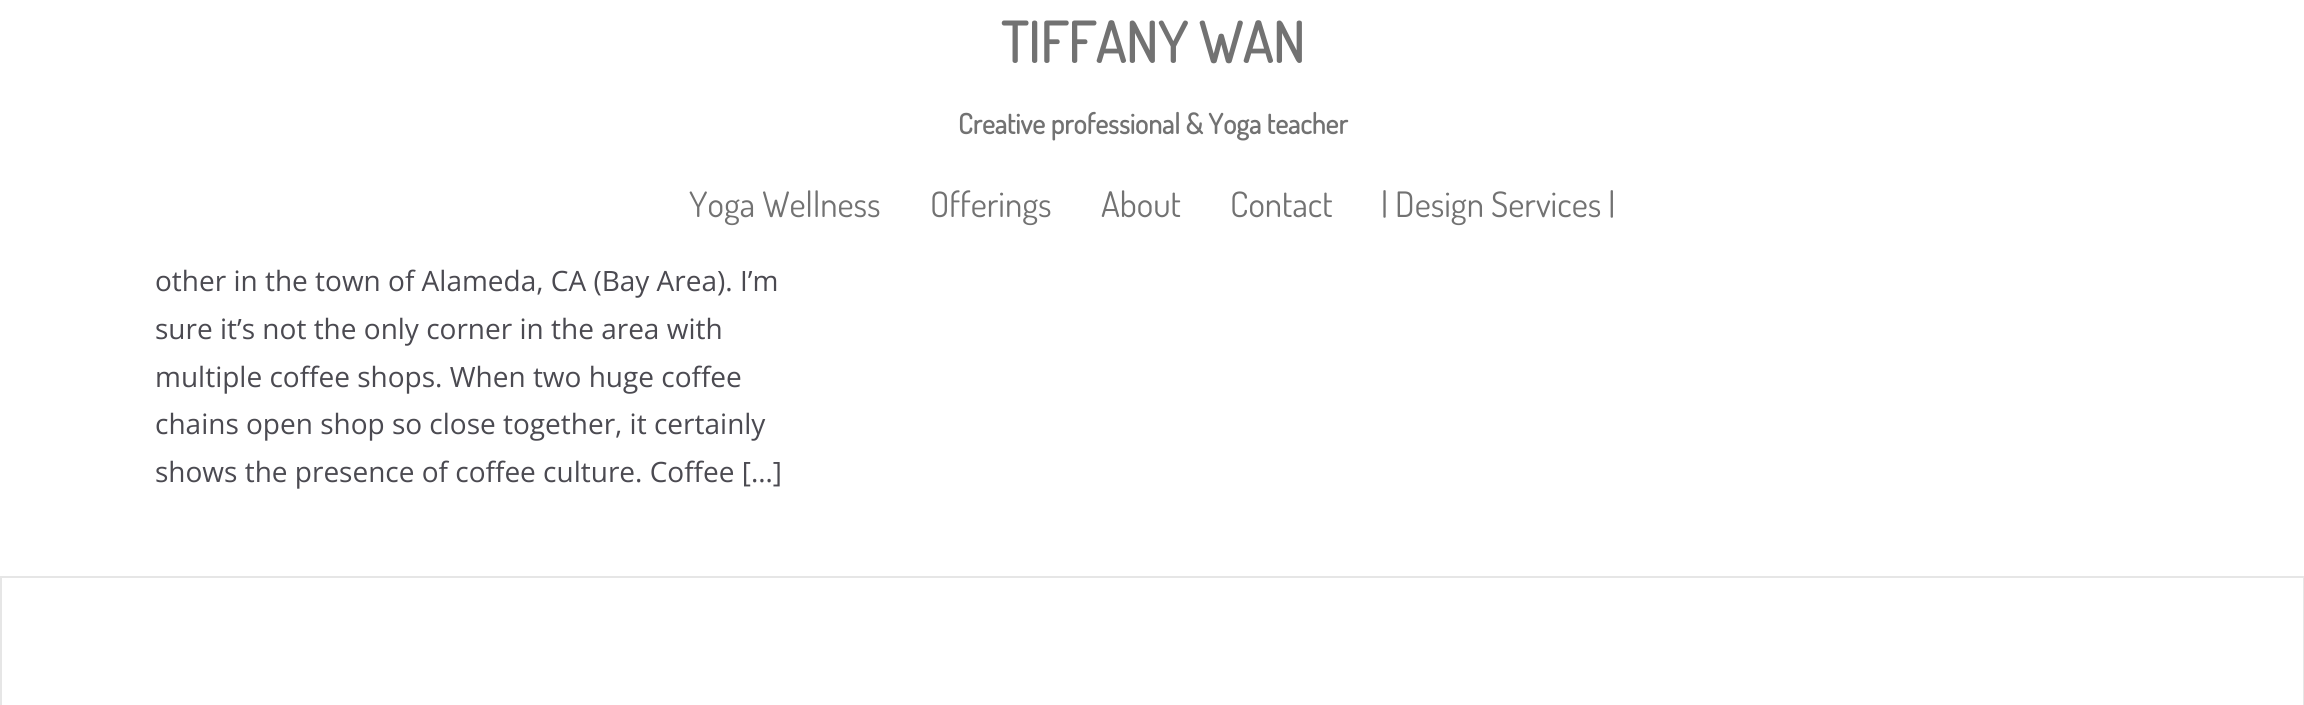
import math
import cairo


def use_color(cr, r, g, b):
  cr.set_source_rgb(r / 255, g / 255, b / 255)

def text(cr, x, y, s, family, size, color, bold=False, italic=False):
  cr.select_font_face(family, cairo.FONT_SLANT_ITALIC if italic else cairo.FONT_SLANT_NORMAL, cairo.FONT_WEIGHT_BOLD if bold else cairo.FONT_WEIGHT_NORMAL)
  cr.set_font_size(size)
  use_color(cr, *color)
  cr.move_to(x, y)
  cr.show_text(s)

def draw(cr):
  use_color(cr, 255, 255, 255)
  cr.paint()
  cr.rectangle(1, 577, 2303, 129)
  use_color(cr, 230, 230, 230)
  cr.stroke()
  text(cr, 1001, 63, "TIFFANY WAN", "Dosis", 56, (114, 114, 114), bold=True)
  text(cr, 958, 134, "Creative professional & Yoga teacher", "Dosis", 28, (114, 114, 114), bold=True)
  text(cr, 689, 217, "Yoga Wellness", "Dosis", 35, (114, 114, 114))
  text(cr, 930, 217, "Offerings", "Dosis", 35, (114, 114, 114))
  text(cr, 1101, 217, "About", "Dosis", 35, (114, 114, 114))
  text(cr, 1230, 217, "Contact", "Dosis", 35, (114, 114, 114))
  text(cr, 1381, 217, "| Design Services |", "Dosis", 35, (114, 114, 114))
  text(cr, 155, 291, "other in the town of Alameda, CA (Bay Area). I’m", "Open Sans", 28, (75, 74, 81))
  text(cr, 155, 339, "sure it’s not the only corner in the area with", "Open Sans", 28, (75, 74, 81))
  text(cr, 155, 387, "multiple coffee shops. When two huge coffee", "Open Sans", 28, (75, 74, 81))
  text(cr, 155, 434, "chains open shop so close together, it certainly", "Open Sans", 28, (75, 74, 81))
  text(cr, 155, 482, "shows the presence of coffee culture. Coffee […]", "Open Sans", 28, (75, 74, 81))


surface = cairo.ImageSurface(cairo.FORMAT_RGB24, 2304, 705)
cr = cairo.Context(surface)
options = cairo.FontOptions()
options.set_hint_metrics(cairo.HINT_METRICS_OFF)
options.set_hint_style(cairo.HINT_STYLE_NONE)
cr.set_font_options(options)
cr.set_miter_limit(4)
draw(cr)
surface.write_to_png("out.png")
